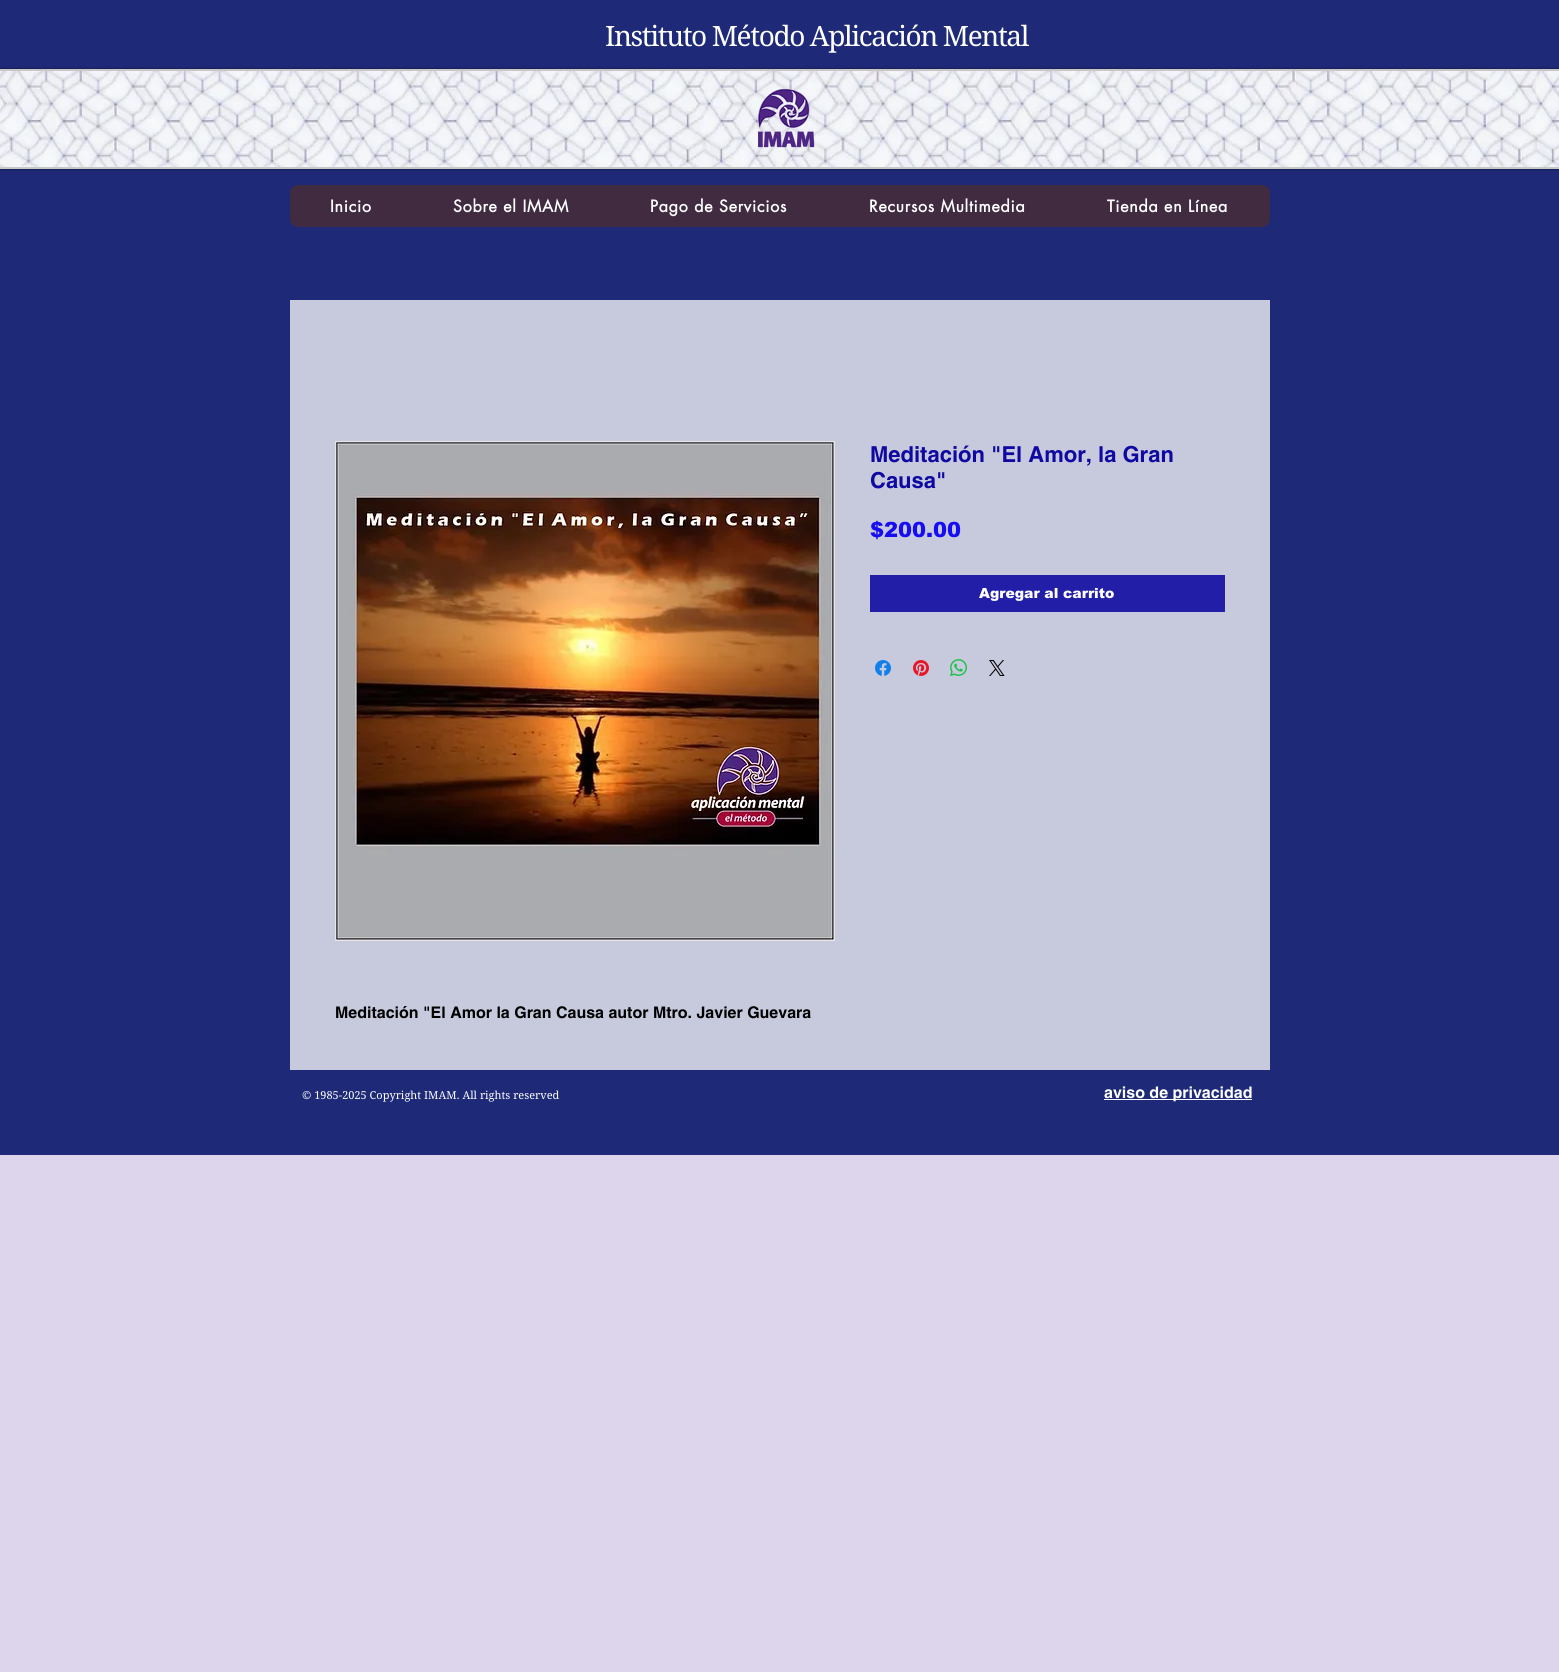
import math
import cairo


def use_color(cr, r, g, b):
  cr.set_source_rgb(r / 255, g / 255, b / 255)

def text(cr, x, y, s, family, size, color, bold=False, italic=False):
  cr.select_font_face(family, cairo.FONT_SLANT_ITALIC if italic else cairo.FONT_SLANT_NORMAL, cairo.FONT_WEIGHT_BOLD if bold else cairo.FONT_WEIGHT_NORMAL)
  cr.set_font_size(size)
  use_color(cr, *color)
  cr.move_to(x, y)
  cr.show_text(s)

def spaced_text(cr, x, y, s, letter, word):
  cr.move_to(x, y)
  for ch in s:
    cr.show_text(ch)
    cr.rel_move_to(letter + word * (ch == ' '), 0)

def box(cr, x, y, w, h, *color):
  use_color(cr, *color)
  cr.rectangle(x, y, w, h)
  cr.fill()

def round_rect(cr, x, y, w, h, r):
  cr.new_sub_path()
  for i, (u, v) in enumerate([(x + w - r, y + h - r), (x + r, y + h - r), (x + r, y + r), (x + w - r, y + r)]):
    cr.arc(u, v, r, i * math.pi / 2, (i + 1) * math.pi / 2)
  cr.close_path()

def shadow(cr, x, y, w, h, r, blur, alpha):
  cr.push_group_with_content(cairo.CONTENT_ALPHA)
  cr.set_operator(cairo.OPERATOR_SOURCE)
  for i in range(15, -16, -2):
    e = blur * i / 6
    if min(w, h) + 2 * e > 0:
      cr.set_source_rgba(0, 0, 0, alpha * math.erfc((i - 1) / 8.5) / 2)
      round_rect(cr, x - e, y - e, w + 2 * e, h + 2 * e, max(0, min(r + e + blur * .6, min(w, h) / 2 + e)))
      cr.fill()
  cr.mask(cr.pop_group())

def picture(cr, path, x, y, w, h):
  cr.save()
  cr.set_source_surface(cairo.ImageSurface.create_from_png(path), x, y)
  cr.rectangle(x, y, w, h)
  cr.fill()
  cr.restore()

def draw(cr):
  use_color(cr, 221, 213, 235)
  cr.paint()
  box(cr, 0, 0, 1559, 1155, 30, 42, 120)
  use_color(cr, 0, 0, 0)
  shadow(cr, -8, 69, 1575, 100, 3, 1.5, 0.5)
  box(cr, 0, 69, 1559, 100, 199, 199, 199)
  picture(cr, "img_01.png", 0, 71, 1559, 96)
  picture(cr, "img_02.png", 757, 88, 58, 60)
  use_color(cr, 64, 43, 64)
  round_rect(cr, 290, 185, 980, 42, 8)
  cr.fill()
  box(cr, 290, 300, 980, 770, 199, 202, 221)
  box(cr, 870, 575, 355, 37, 35, 30, 168)
  picture(cr, "img_03.png", 875, 660, 16, 16)
  picture(cr, "img_04.png", 913, 660, 16, 16)
  picture(cr, "img_05.png", 950, 659, 17, 17)
  picture(cr, "img_06.png", 989, 660, 16, 16)
  cr.rectangle(335.5, 441.5, 499, 499)
  use_color(cr, 232, 230, 230)
  cr.set_line_width(1)
  cr.stroke()
  picture(cr, "img_07.png", 336, 442, 498, 498)
  box(cr, 1104, 1099, 148, 1, 255, 255, 255)
  cr.select_font_face("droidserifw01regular")
  cr.set_font_size(28)
  spaced_text(cr, 605, 46, "Instituto Método Aplicación Mental", -1.4, 0)
  cr.select_font_face("futura", cairo.FONT_SLANT_NORMAL, cairo.FONT_WEIGHT_BOLD)
  cr.set_font_size(16)
  spaced_text(cr, 330, 212, "Inicio", 0.75, 0)
  spaced_text(cr, 453, 212, "Sobre el IMAM", 0.75, 0)
  spaced_text(cr, 650, 212, "Pago de Servicios", 0.75, 0)
  spaced_text(cr, 869, 212, "Recursos Multimedia", 0.75, 0)
  spaced_text(cr, 1107, 212, "Tienda en Línea", 0.75, 0)
  text(cr, 870, 462, "Meditación \"El Amor, la Gran", "helvetica", 22, (15, 9, 161), bold=True)
  text(cr, 870, 488, "Causa\"", "helvetica", 22, (15, 9, 161), bold=True)
  text(cr, 870, 537, "$200.00", "arial Black", 21, (23, 13, 242))
  text(cr, 979, 598, "Agregar al carrito", "arial Black", 14, (255, 255, 255))
  text(cr, 335, 1018, "Meditación \"El Amor la Gran Causa autor Mtro. Javier Guevara", "helvetica", 16, (0, 0, 0), bold=True)
  text(cr, 302, 1099, "© 1985-2025 Copyright IMAM. All rights reserved", "droidserifw01regular", 11, (255, 255, 255))
  text(cr, 1104, 1098, "aviso de privacidad", "helvetica", 16, (255, 255, 255), bold=True)


surface = cairo.ImageSurface(cairo.FORMAT_RGB24, 1559, 1672)
cr = cairo.Context(surface)
options = cairo.FontOptions()
options.set_hint_metrics(cairo.HINT_METRICS_OFF)
options.set_hint_style(cairo.HINT_STYLE_NONE)
cr.set_font_options(options)
cr.set_miter_limit(4)
draw(cr)
surface.write_to_png("out.png")
